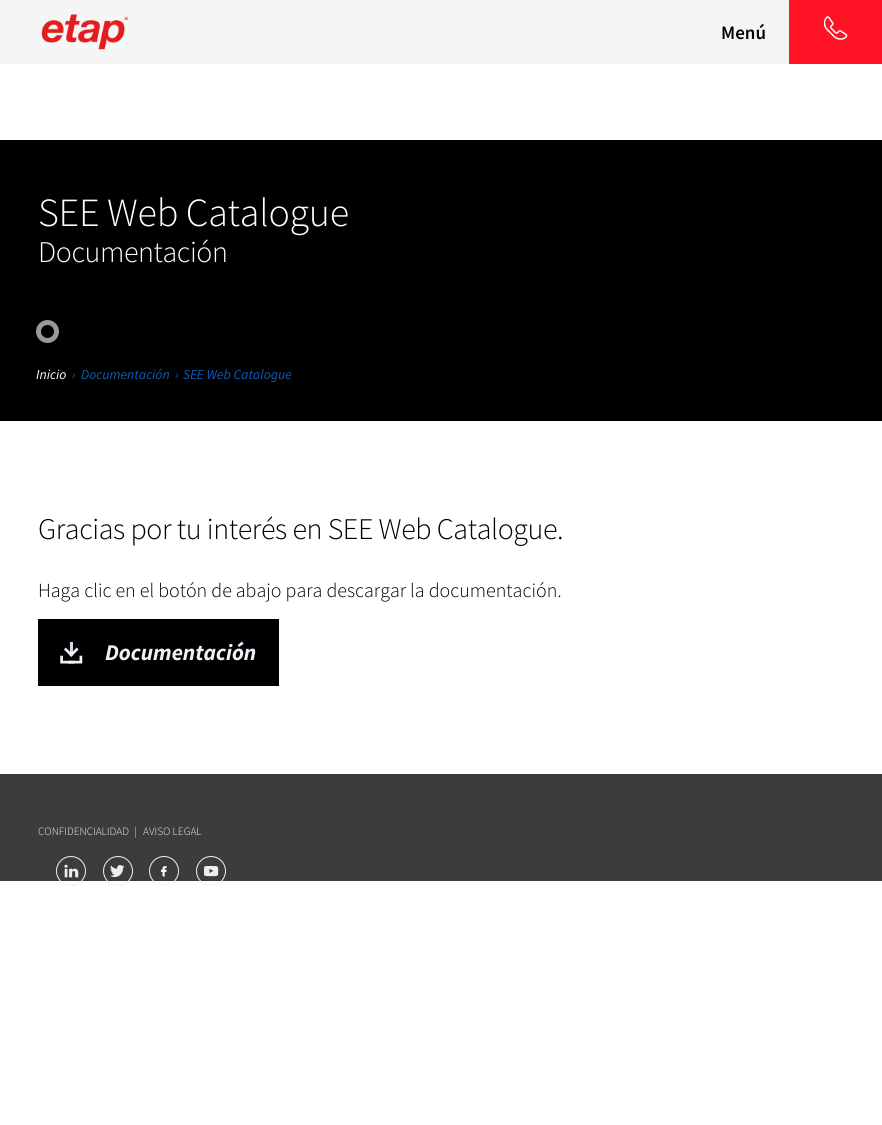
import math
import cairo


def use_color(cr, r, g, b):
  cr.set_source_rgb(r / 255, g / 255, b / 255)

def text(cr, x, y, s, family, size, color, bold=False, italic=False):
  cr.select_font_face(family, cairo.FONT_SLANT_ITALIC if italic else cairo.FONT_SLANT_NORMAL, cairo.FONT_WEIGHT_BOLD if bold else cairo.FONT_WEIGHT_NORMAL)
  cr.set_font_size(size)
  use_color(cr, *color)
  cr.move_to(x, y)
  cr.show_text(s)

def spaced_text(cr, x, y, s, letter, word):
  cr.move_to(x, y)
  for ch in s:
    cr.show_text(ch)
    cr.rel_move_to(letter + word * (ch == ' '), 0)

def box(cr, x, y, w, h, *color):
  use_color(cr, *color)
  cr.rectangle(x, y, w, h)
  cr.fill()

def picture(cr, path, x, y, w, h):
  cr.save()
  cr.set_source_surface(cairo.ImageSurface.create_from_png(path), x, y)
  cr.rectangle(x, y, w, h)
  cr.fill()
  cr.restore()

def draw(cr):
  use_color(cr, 255, 255, 255)
  cr.paint()
  box(cr, 0, 0, 789, 64, 245, 245, 245)
  picture(cr, "img_01.png", 41, 14, 87, 36)
  box(cr, 789, 0, 93, 64, 255, 19, 36)
  picture(cr, "img_02.png", 824, 16, 24, 24)
  box(cr, 0, 140, 882, 281, 0, 0, 0)
  cr.arc(47.5, 331.5, 9, 0, 2 * math.pi)
  use_color(cr, 153, 153, 153)
  cr.set_line_width(5)
  cr.stroke()
  box(cr, 38, 619, 241, 67, 0, 0, 0)
  picture(cr, "img_03.png", 60, 642, 23, 22)
  box(cr, 0, 774, 882, 107, 60, 60, 60)
  cr.arc(71, 871, 14.5, 0, 2 * math.pi)
  use_color(cr, 237, 241, 248)
  cr.set_line_width(1)
  cr.stroke()
  picture(cr, "img_04.png", 64, 864, 15, 14)
  cr.arc(118, 871, 14.5, 0, 2 * math.pi)
  cr.stroke()
  picture(cr, "img_05.png", 110, 865, 15, 13)
  cr.arc(164, 871, 14.5, 0, 2 * math.pi)
  cr.stroke()
  picture(cr, "img_06.png", 160, 866, 7, 11)
  cr.arc(211, 871, 14.5, 0, 2 * math.pi)
  cr.stroke()
  picture(cr, "img_07.png", 204, 865, 15, 12)
  text(cr, 721, 39, "Menú", "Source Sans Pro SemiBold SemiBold", 19, (0, 0, 0))
  cr.select_font_face("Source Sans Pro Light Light")
  cr.set_font_size(40)
  use_color(cr, 255, 255, 255)
  spaced_text(cr, 38, 226, "SEE Web Catalogue", -0.25, 0)
  cr.set_font_size(30)
  spaced_text(cr, 38, 262, "Documentación", -0.4, 0)
  text(cr, 36, 379, "Inicio", "Source Sans Pro", 13.75, (255, 255, 255), italic=True)
  text(cr, 72, 379, "›", "Source Sans Pro", 13.75, (16, 92, 182), italic=True)
  text(cr, 81, 379, "Documentación", "Source Sans Pro", 13.75, (16, 92, 182), italic=True)
  text(cr, 175, 379, "›", "Source Sans Pro", 13.75, (16, 92, 182), italic=True)
  text(cr, 183, 379, "SEE Web Catalogue", "Source Sans Pro", 13.75, (16, 92, 182), italic=True)
  cr.select_font_face("Source Sans Pro Light Light")
  cr.set_font_size(30)
  use_color(cr, 0, 0, 0)
  spaced_text(cr, 38, 539, "Gracias por tu interés en SEE Web Catalogue.", -0.4, 0)
  text(cr, 38, 597, "Haga clic en el botón de abajo para descargar la documentación.", "Source Sans Pro Light Light", 20, (0, 0, 0))
  text(cr, 105, 660, "Documentación", "Source Sans Pro", 22.5, (237, 241, 248), bold=True, italic=True)
  text(cr, 38, 835, "CONFIDENCIALIDAD", "Source Sans Pro Light Light", 11.25, (237, 241, 248))
  text(cr, 134, 835, "|", "Source Sans Pro Light Light", 11.25, (237, 241, 248))
  text(cr, 143, 835, "AVISO LEGAL", "Source Sans Pro Light Light", 11.25, (237, 241, 248))


surface = cairo.ImageSurface(cairo.FORMAT_RGB24, 882, 1125)
cr = cairo.Context(surface)
options = cairo.FontOptions()
options.set_hint_metrics(cairo.HINT_METRICS_OFF)
options.set_hint_style(cairo.HINT_STYLE_NONE)
cr.set_font_options(options)
cr.set_miter_limit(4)
draw(cr)
surface.write_to_png("out.png")
